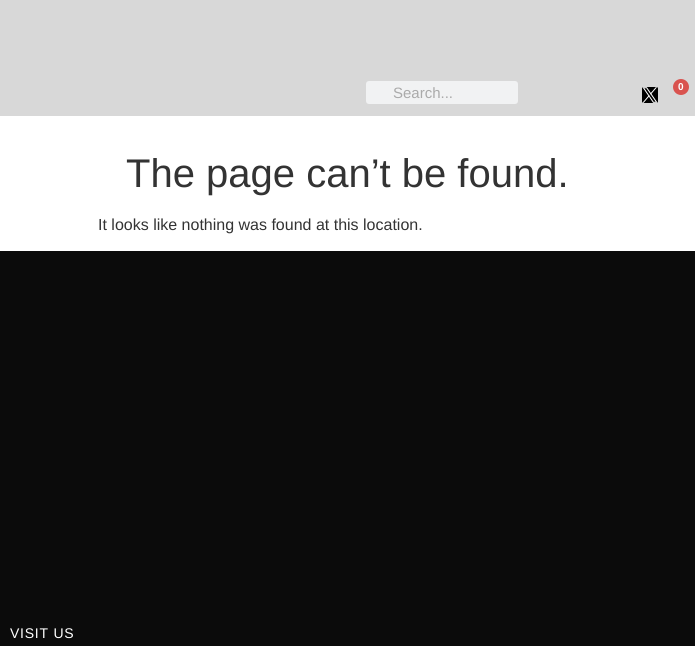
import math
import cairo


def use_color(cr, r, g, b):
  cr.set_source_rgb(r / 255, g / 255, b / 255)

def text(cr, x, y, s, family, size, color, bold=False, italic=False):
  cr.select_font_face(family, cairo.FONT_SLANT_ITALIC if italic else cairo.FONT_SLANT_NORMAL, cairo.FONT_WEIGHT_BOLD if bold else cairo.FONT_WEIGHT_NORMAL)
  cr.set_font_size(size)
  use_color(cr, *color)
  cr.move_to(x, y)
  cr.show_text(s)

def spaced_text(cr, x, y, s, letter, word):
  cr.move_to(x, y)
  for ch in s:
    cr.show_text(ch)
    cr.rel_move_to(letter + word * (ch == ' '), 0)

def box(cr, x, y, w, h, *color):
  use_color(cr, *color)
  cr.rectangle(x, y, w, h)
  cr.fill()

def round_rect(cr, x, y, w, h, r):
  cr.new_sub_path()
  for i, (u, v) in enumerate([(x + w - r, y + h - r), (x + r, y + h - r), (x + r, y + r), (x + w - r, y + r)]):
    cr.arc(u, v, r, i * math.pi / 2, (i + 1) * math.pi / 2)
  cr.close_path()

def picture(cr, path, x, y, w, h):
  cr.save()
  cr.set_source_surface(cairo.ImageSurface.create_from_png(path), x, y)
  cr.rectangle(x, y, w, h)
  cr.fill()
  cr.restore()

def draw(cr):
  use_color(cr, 255, 255, 255)
  cr.paint()
  box(cr, 0, 0, 695, 116, 216, 216, 216)
  use_color(cr, 241, 242, 243)
  round_rect(cr, 366, 81, 152, 23, 3)
  cr.fill()
  use_color(cr, 0, 0, 0)
  round_rect(cr, 642, 87, 16, 16, 1.5)
  cr.fill()
  picture(cr, "img_01.png", 642, 87, 16, 16)
  use_color(cr, 217, 83, 79)
  cr.arc(681, 87, 8, 0, 2 * math.pi)
  cr.fill()
  box(cr, 0, 251, 695, 395, 11, 11, 11)
  text(cr, 393, 98, "Search...", "Liberation Sans", 15, (170, 170, 170))
  text(cr, 678, 90, "0", "Liberation Sans", 10, (255, 255, 255), bold=True)
  text(cr, 126, 187, "The page can’t be found.", "Liberation Sans", 40, (51, 51, 51))
  text(cr, 98, 230, "It looks like nothing was found at this location.", "Liberation Sans", 16, (51, 51, 51))
  cr.set_font_size(14)
  use_color(cr, 255, 255, 255)
  spaced_text(cr, 10, 638, "VISIT US", 0.75, 0)


surface = cairo.ImageSurface(cairo.FORMAT_RGB24, 695, 646)
cr = cairo.Context(surface)
options = cairo.FontOptions()
options.set_hint_metrics(cairo.HINT_METRICS_OFF)
options.set_hint_style(cairo.HINT_STYLE_NONE)
cr.set_font_options(options)
cr.set_miter_limit(4)
draw(cr)
surface.write_to_png("out.png")
